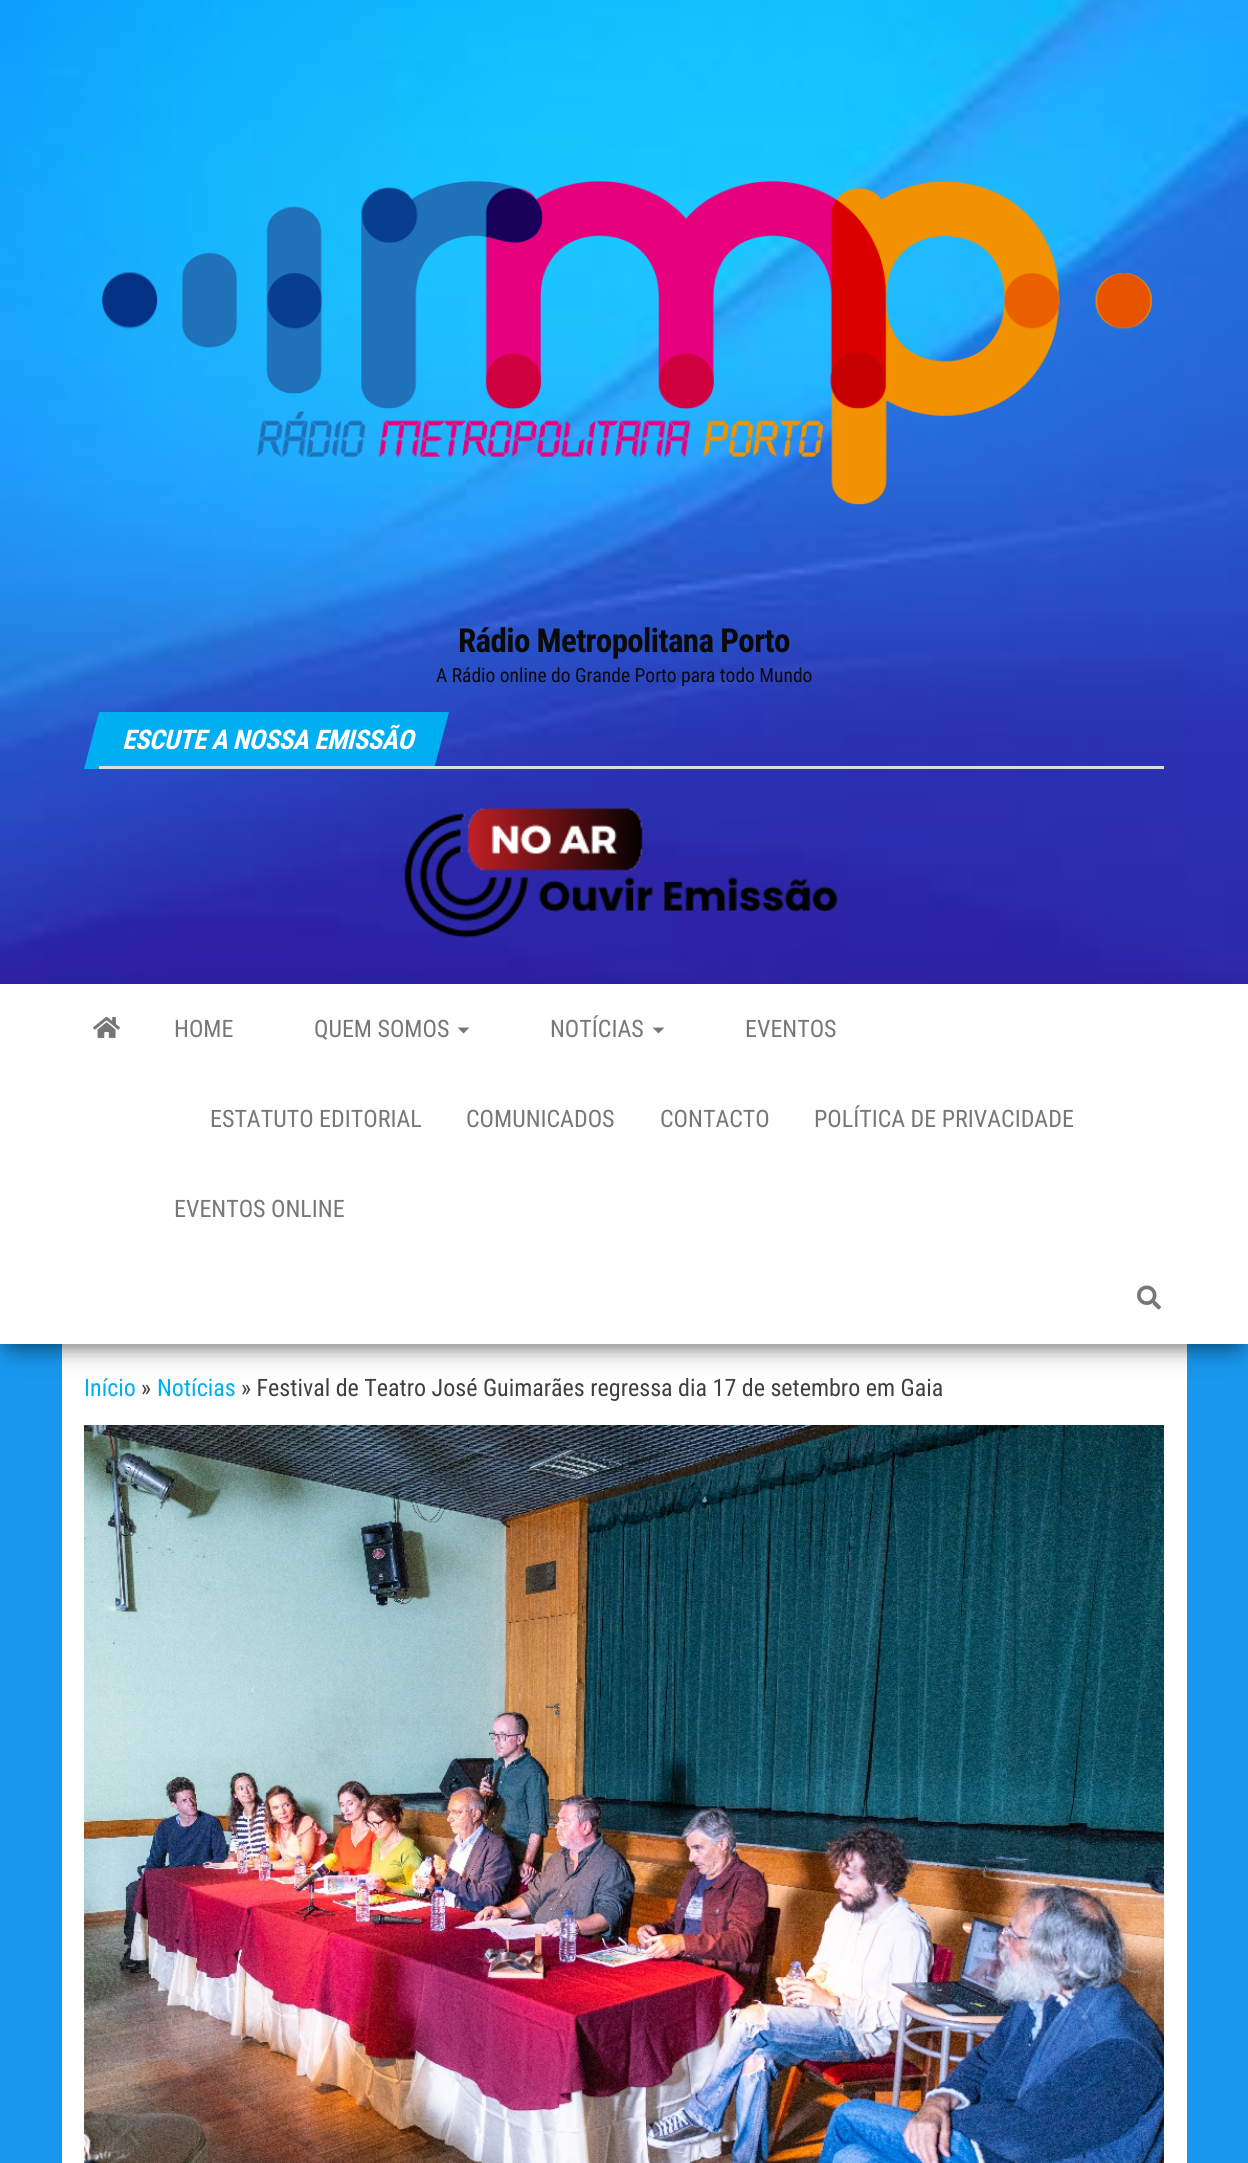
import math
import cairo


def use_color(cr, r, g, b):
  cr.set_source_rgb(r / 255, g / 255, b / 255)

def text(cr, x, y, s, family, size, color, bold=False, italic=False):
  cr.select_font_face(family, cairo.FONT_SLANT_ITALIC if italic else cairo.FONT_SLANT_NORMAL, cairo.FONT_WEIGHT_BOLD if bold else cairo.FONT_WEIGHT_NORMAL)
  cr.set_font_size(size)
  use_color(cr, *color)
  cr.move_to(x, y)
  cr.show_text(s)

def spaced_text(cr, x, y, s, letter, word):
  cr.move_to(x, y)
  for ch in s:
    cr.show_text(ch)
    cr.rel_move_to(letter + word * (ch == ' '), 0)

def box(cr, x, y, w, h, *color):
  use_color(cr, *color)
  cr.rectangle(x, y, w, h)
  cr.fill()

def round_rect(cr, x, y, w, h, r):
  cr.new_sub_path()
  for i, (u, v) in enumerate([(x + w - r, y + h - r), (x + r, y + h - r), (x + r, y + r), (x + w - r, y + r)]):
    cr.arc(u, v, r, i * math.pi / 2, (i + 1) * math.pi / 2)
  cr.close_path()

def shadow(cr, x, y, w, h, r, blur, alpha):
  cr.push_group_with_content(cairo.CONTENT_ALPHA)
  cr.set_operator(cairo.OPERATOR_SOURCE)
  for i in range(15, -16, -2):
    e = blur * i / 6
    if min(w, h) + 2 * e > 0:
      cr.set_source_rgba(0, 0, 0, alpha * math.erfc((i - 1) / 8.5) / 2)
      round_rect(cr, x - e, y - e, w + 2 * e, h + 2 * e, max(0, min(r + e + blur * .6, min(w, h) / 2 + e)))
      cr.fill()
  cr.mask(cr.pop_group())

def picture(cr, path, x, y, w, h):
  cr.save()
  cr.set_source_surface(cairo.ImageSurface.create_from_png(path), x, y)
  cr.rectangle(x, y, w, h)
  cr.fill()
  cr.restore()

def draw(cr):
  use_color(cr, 23, 151, 237)
  cr.paint()
  picture(cr, "img_01.png", 0, 0, 1248, 984)
  picture(cr, "img_02.png", 102, 181, 1050, 324)
  use_color(cr, 0, 175, 242)
  cr.new_path()
  cr.move_to(99, 712)
  cr.line_to(449, 712)
  cr.line_to(434, 769)
  cr.line_to(84, 769)
  cr.close_path()
  cr.fill()
  box(cr, 99, 766, 1065, 3, 221, 221, 221)
  picture(cr, "img_03.png", 404, 808, 434, 130)
  box(cr, 62, 1344, 1125, 819, 255, 255, 255)
  use_color(cr, 0, 0, 0)
  shadow(cr, 8, 1004, 1233, 345, 0, 7.5, 0.2)
  shadow(cr, 0, 989, 1248, 360, 0, 15, 0.12)
  shadow(cr, 18, 1017, 1212, 324, 0, 15, 0.42)
  box(cr, 0, 984, 1248, 360, 255, 255, 255)
  picture(cr, "img_04.png", 93, 1017, 27, 21)
  use_color(cr, 119, 119, 119)
  cr.new_path()
  cr.move_to(457.5, 1027.5)
  cr.line_to(469.5, 1027.5)
  cr.line_to(463.5, 1033.5)
  cr.close_path()
  cr.fill()
  cr.new_path()
  cr.move_to(652.5, 1027.5)
  cr.line_to(664.5, 1027.5)
  cr.line_to(658.5, 1033.5)
  cr.close_path()
  cr.fill()
  picture(cr, "img_05.png", 1137, 1285, 24, 25)
  picture(cr, "img_06.png", 84, 1425, 1080, 738)
  cr.select_font_face("Roboto Condensed", cairo.FONT_SLANT_NORMAL, cairo.FONT_WEIGHT_BOLD)
  cr.set_font_size(33)
  use_color(cr, 10, 10, 10)
  spaced_text(cr, 458, 652, "Rádio Metropolitana Porto", -0.65, 0)
  text(cr, 436, 682, "A Rádio online do Grande Porto para todo Mundo", "Roboto Condensed", 19.5, (10, 10, 10))
  cr.select_font_face("Roboto Condensed", cairo.FONT_SLANT_ITALIC, cairo.FONT_WEIGHT_BOLD)
  cr.set_font_size(27)
  use_color(cr, 255, 255, 255)
  spaced_text(cr, 122, 749, "ESCUTE A NOSSA EMISSÃO", -0.5, 0)
  text(cr, 174, 1037, "HOME", "Roboto Condensed", 24, (119, 119, 119))
  text(cr, 314, 1037, "QUEM SOMOS", "Roboto Condensed", 24, (119, 119, 119))
  text(cr, 550, 1037, "NOTÍCIAS", "Roboto Condensed", 24, (119, 119, 119))
  text(cr, 745, 1037, "EVENTOS", "Roboto Condensed", 24, (119, 119, 119))
  text(cr, 210, 1127, "ESTATUTO EDITORIAL", "Roboto Condensed", 24, (119, 119, 119))
  text(cr, 466, 1127, "COMUNICADOS", "Roboto Condensed", 24, (119, 119, 119))
  text(cr, 660, 1127, "CONTACTO", "Roboto Condensed", 24, (119, 119, 119))
  text(cr, 814, 1127, "POLÍTICA DE PRIVACIDADE", "Roboto Condensed", 24, (119, 119, 119))
  text(cr, 174, 1217, "EVENTOS ONLINE", "Roboto Condensed", 24, (119, 119, 119))
  text(cr, 84, 1396, "Início", "Roboto Condensed", 24, (0, 175, 242))
  text(cr, 141, 1396, "»", "Roboto Condensed", 24, (64, 64, 64))
  text(cr, 157, 1396, "Notícias", "Roboto Condensed", 24, (0, 175, 242))
  text(cr, 241, 1396, "» Festival de Teatro José Guimarães regressa dia 17 de setembro em Gaia", "Roboto Condensed", 24, (64, 64, 64))


surface = cairo.ImageSurface(cairo.FORMAT_RGB24, 1248, 2163)
cr = cairo.Context(surface)
options = cairo.FontOptions()
options.set_hint_metrics(cairo.HINT_METRICS_OFF)
options.set_hint_style(cairo.HINT_STYLE_NONE)
cr.set_font_options(options)
cr.set_miter_limit(4)
draw(cr)
surface.write_to_png("out.png")
